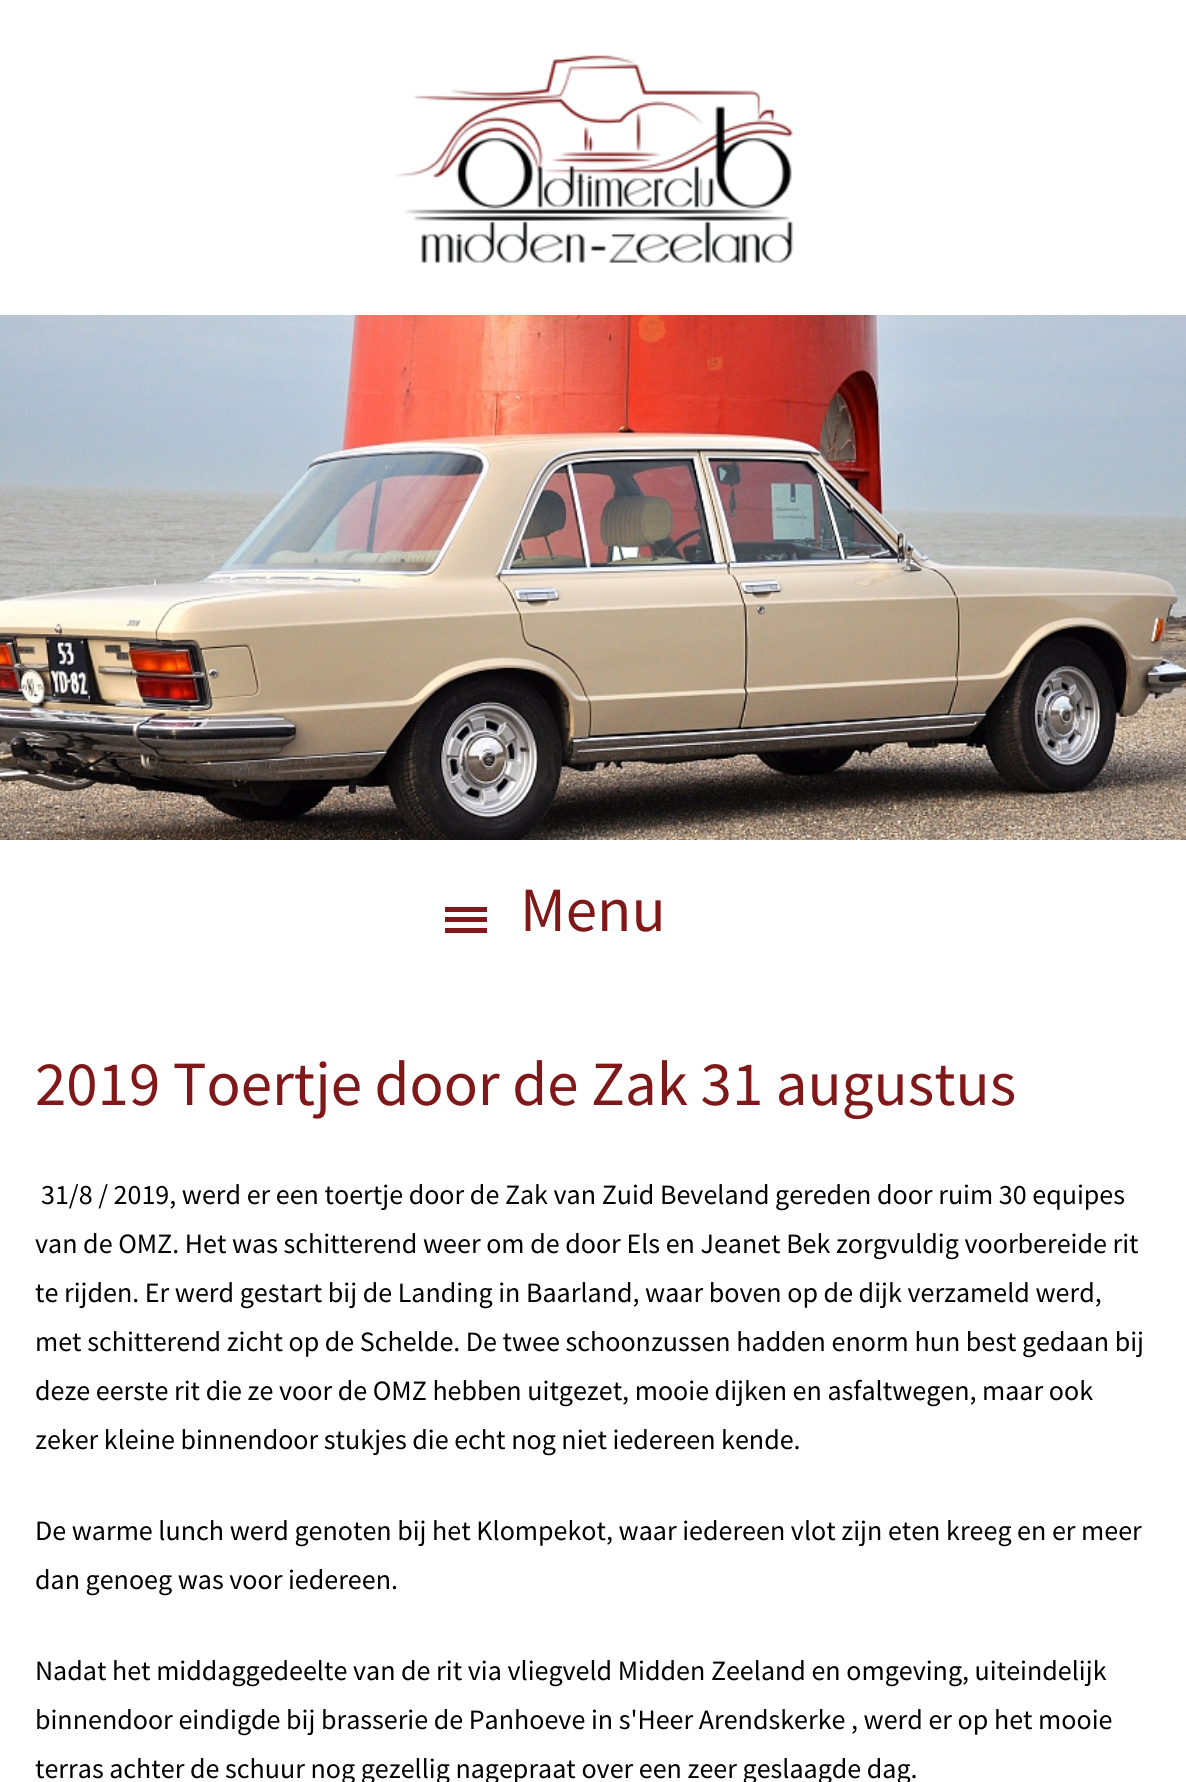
import math
import cairo


def use_color(cr, r, g, b):
  cr.set_source_rgb(r / 255, g / 255, b / 255)

def text(cr, x, y, s, family, size, color, bold=False, italic=False):
  cr.select_font_face(family, cairo.FONT_SLANT_ITALIC if italic else cairo.FONT_SLANT_NORMAL, cairo.FONT_WEIGHT_BOLD if bold else cairo.FONT_WEIGHT_NORMAL)
  cr.set_font_size(size)
  use_color(cr, *color)
  cr.move_to(x, y)
  cr.show_text(s)

def box(cr, x, y, w, h, *color):
  use_color(cr, *color)
  cr.rectangle(x, y, w, h)
  cr.fill()

def picture(cr, path, x, y, w, h):
  cr.save()
  cr.set_source_surface(cairo.ImageSurface.create_from_png(path), x, y)
  cr.rectangle(x, y, w, h)
  cr.fill()
  cr.restore()

def draw(cr):
  use_color(cr, 255, 255, 255)
  cr.paint()
  picture(cr, "img_01.png", 395, 54, 399, 209)
  picture(cr, "img_02.png", 0, 315, 1186, 525)
  box(cr, 445, 917, 42, 5, 128, 24, 25)
  box(cr, 445, 907, 42, 5, 128, 24, 25)
  box(cr, 445, 928, 42, 5, 128, 24, 25)
  text(cr, 520, 931, "Menu", "Source Sans Pro", 63, (128, 24, 25))
  text(cr, 35, 1105, "2019 Toertje door de Zak 31 augustus", "Source Sans Pro", 63, (128, 24, 25))
  text(cr, 41, 1204, "31/8 / 2019, werd er een toertje door de Zak van Zuid Beveland gereden door ruim 30 equipes", "Source Sans Pro", 28, (0, 0, 0))
  text(cr, 35, 1253, "van de OMZ. Het was schitterend weer om de door Els en Jeanet Bek zorgvuldig voorbereide rit", "Source Sans Pro", 28, (0, 0, 0))
  text(cr, 35, 1302, "te rijden. Er werd gestart bij de Landing in Baarland, waar boven op de dijk verzameld werd,", "Source Sans Pro", 28, (0, 0, 0))
  text(cr, 35, 1351, "met schitterend zicht op de Schelde. De twee schoonzussen hadden enorm hun best gedaan bij", "Source Sans Pro", 28, (0, 0, 0))
  text(cr, 35, 1400, "deze eerste rit die ze voor de OMZ hebben uitgezet, mooie dijken en asfaltwegen, maar ook", "Source Sans Pro", 28, (0, 0, 0))
  text(cr, 35, 1449, "zeker kleine binnendoor stukjes die echt nog niet iedereen kende.", "Source Sans Pro", 28, (0, 0, 0))
  text(cr, 35, 1540, "De warme lunch werd genoten bij het Klompekot, waar iedereen vlot zijn eten kreeg en er meer", "Source Sans Pro", 28, (0, 0, 0))
  text(cr, 35, 1589, "dan genoeg was voor iedereen.", "Source Sans Pro", 28, (0, 0, 0))
  text(cr, 35, 1680, "Nadat het middaggedeelte van de rit via vliegveld Midden Zeeland en omgeving, uiteindelijk", "Source Sans Pro", 28, (0, 0, 0))
  text(cr, 35, 1729, "binnendoor eindigde bij brasserie de Panhoeve in s'Heer Arendskerke , werd er op het mooie", "Source Sans Pro", 28, (0, 0, 0))
  text(cr, 35, 1778, "terras achter de schuur nog gezellig nagepraat over een zeer geslaagde dag.", "Source Sans Pro", 28, (0, 0, 0))


surface = cairo.ImageSurface(cairo.FORMAT_RGB24, 1186, 1782)
cr = cairo.Context(surface)
options = cairo.FontOptions()
options.set_hint_metrics(cairo.HINT_METRICS_OFF)
options.set_hint_style(cairo.HINT_STYLE_NONE)
cr.set_font_options(options)
cr.set_miter_limit(4)
draw(cr)
surface.write_to_png("out.png")
